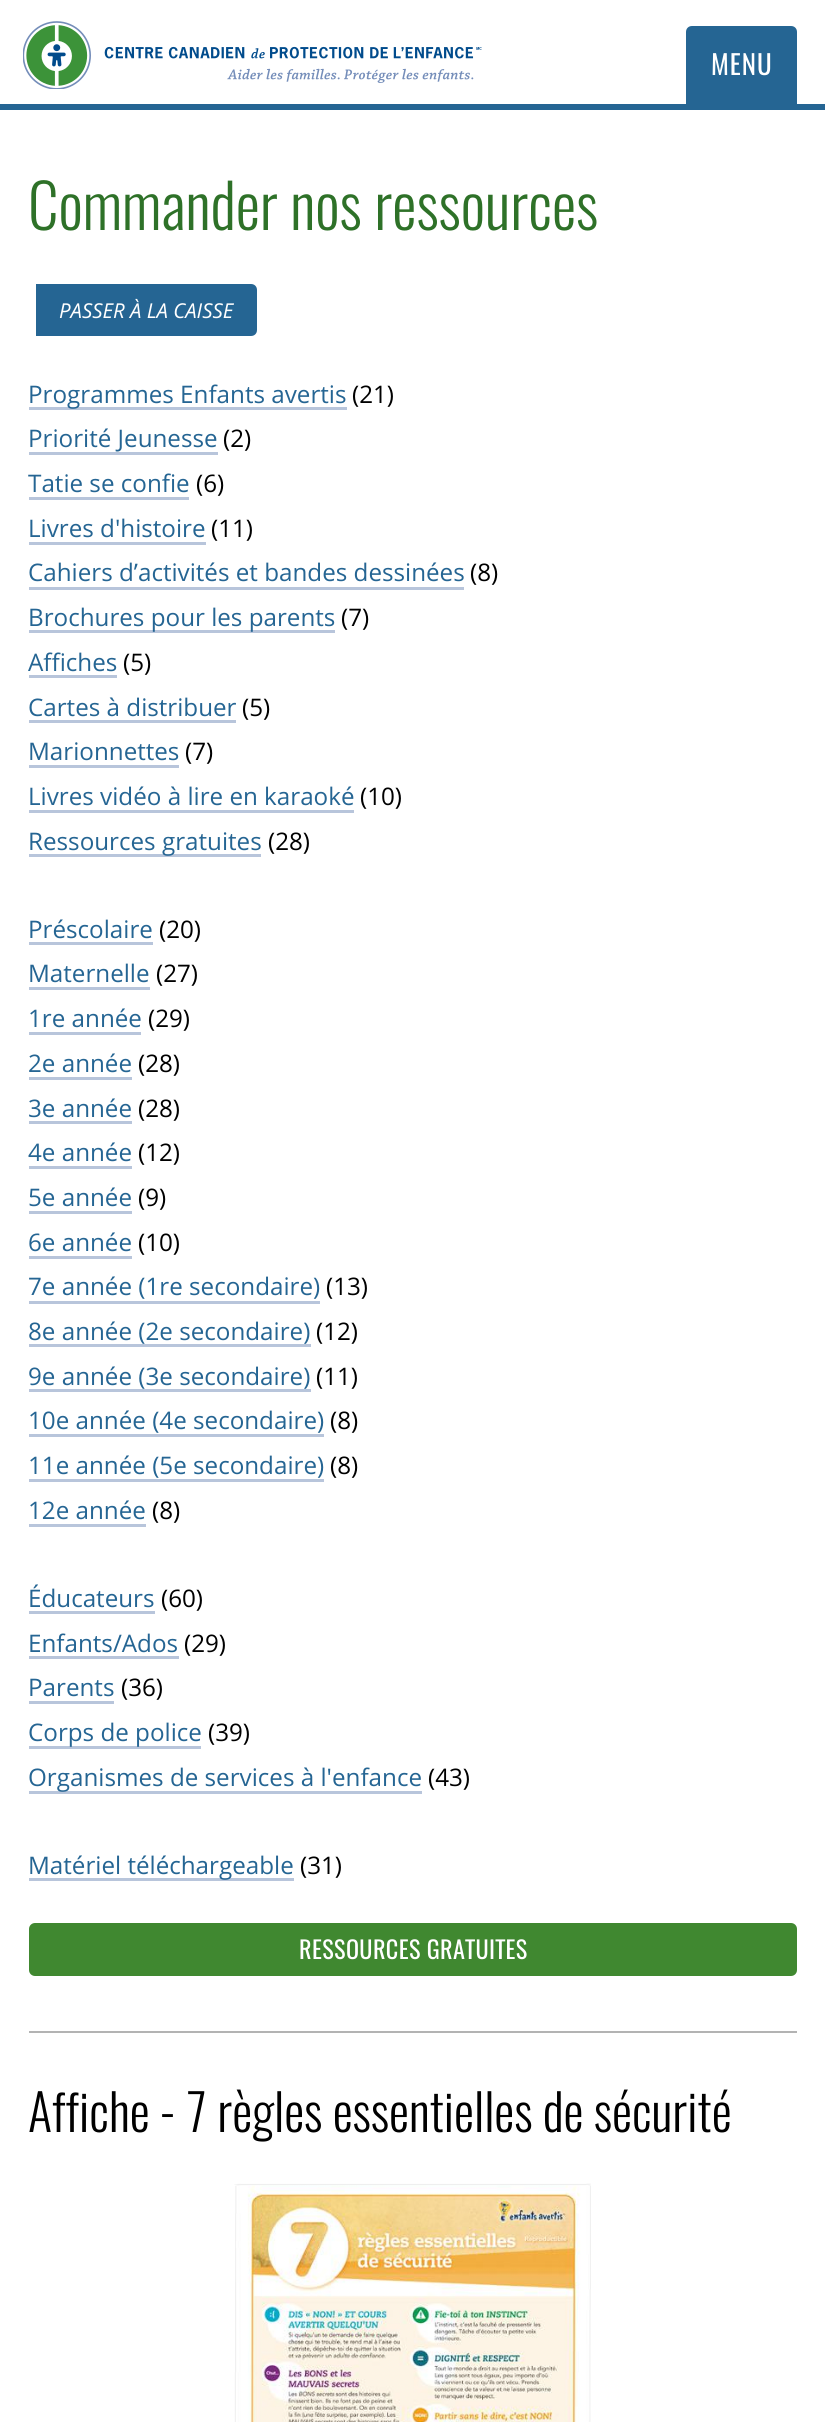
import math
import cairo


def use_color(cr, r, g, b):
  cr.set_source_rgb(r / 255, g / 255, b / 255)

def text(cr, x, y, s, family, size, color, bold=False, italic=False):
  cr.select_font_face(family, cairo.FONT_SLANT_ITALIC if italic else cairo.FONT_SLANT_NORMAL, cairo.FONT_WEIGHT_BOLD if bold else cairo.FONT_WEIGHT_NORMAL)
  cr.set_font_size(size)
  use_color(cr, *color)
  cr.move_to(x, y)
  cr.show_text(s)

def spaced_text(cr, x, y, s, letter, word):
  cr.move_to(x, y)
  for ch in s:
    cr.show_text(ch)
    cr.rel_move_to(letter + word * (ch == ' '), 0)

def box(cr, x, y, w, h, *color):
  use_color(cr, *color)
  cr.rectangle(x, y, w, h)
  cr.fill()

def round_rect(cr, x, y, w, h, r):
  cr.new_sub_path()
  for i, (u, v) in enumerate([(x + w - r, y + h - r), (x + r, y + h - r), (x + r, y + r), (x + w - r, y + r)]):
    cr.arc(u, v, r, i * math.pi / 2, (i + 1) * math.pi / 2)
  cr.close_path()

def picture(cr, path, x, y, w, h):
  cr.save()
  cr.set_source_surface(cairo.ImageSurface.create_from_png(path), x, y)
  cr.rectangle(x, y, w, h)
  cr.fill()
  cr.restore()

def draw(cr):
  use_color(cr, 255, 255, 255)
  cr.paint()
  box(cr, 0, 104, 825, 6, 37, 101, 147)
  picture(cr, "img_01.png", 23, 21, 459, 68)
  cr.new_path()
  cr.move_to(692, 26)
  cr.line_to(791, 26)
  cr.curve_to(794.5, 26, 797, 28.5, 797, 32)
  cr.line_to(797, 104)
  cr.line_to(686, 104)
  cr.line_to(686, 32)
  cr.curve_to(686, 28.5, 688.5, 26, 692, 26)
  cr.close_path()
  cr.fill()
  cr.new_path()
  cr.move_to(36, 284)
  cr.line_to(251, 284)
  cr.curve_to(254.5, 284, 257, 286.5, 257, 290)
  cr.line_to(257, 330)
  cr.curve_to(257, 333.5, 254.5, 336, 251, 336)
  cr.line_to(36, 336)
  cr.close_path()
  cr.fill()
  box(cr, 29, 407, 318, 3, 184, 197, 219)
  box(cr, 29, 452, 189, 3, 184, 197, 219)
  box(cr, 29, 497, 160, 3, 184, 197, 219)
  box(cr, 29, 542, 177, 3, 184, 197, 219)
  box(cr, 29, 587, 435, 3, 184, 197, 219)
  box(cr, 29, 630, 306, 3, 184, 197, 219)
  box(cr, 29, 675, 88, 3, 184, 197, 219)
  box(cr, 29, 720, 207, 3, 184, 197, 219)
  box(cr, 29, 765, 150, 3, 184, 197, 219)
  box(cr, 29, 810, 325, 3, 184, 197, 219)
  box(cr, 29, 854, 232, 3, 184, 197, 219)
  box(cr, 29, 942, 124, 3, 184, 197, 219)
  box(cr, 29, 987, 121, 3, 184, 197, 219)
  box(cr, 29, 1032, 112, 3, 184, 197, 219)
  box(cr, 29, 1077, 103, 3, 184, 197, 219)
  box(cr, 29, 1121, 103, 3, 184, 197, 219)
  box(cr, 29, 1166, 103, 3, 184, 197, 219)
  box(cr, 29, 1211, 103, 3, 184, 197, 219)
  box(cr, 29, 1256, 103, 3, 184, 197, 219)
  box(cr, 29, 1301, 291, 3, 184, 197, 219)
  box(cr, 29, 1344, 282, 3, 184, 197, 219)
  box(cr, 29, 1389, 282, 3, 184, 197, 219)
  box(cr, 29, 1434, 295, 3, 184, 197, 219)
  box(cr, 29, 1479, 295, 3, 184, 197, 219)
  box(cr, 29, 1524, 117, 3, 184, 197, 219)
  box(cr, 29, 1611, 126, 3, 184, 197, 219)
  box(cr, 29, 1656, 150, 3, 184, 197, 219)
  box(cr, 29, 1701, 85, 3, 184, 197, 219)
  box(cr, 29, 1746, 172, 3, 184, 197, 219)
  box(cr, 29, 1791, 393, 3, 184, 197, 219)
  box(cr, 29, 1878, 265, 3, 184, 197, 219)
  use_color(cr, 64, 136, 48)
  round_rect(cr, 29, 1923, 768, 53, 6)
  cr.fill()
  box(cr, 29, 2031, 768, 2, 179, 179, 179)
  picture(cr, "img_02.png", 234, 2183, 357, 239)
  cr.select_font_face("Oswald")
  cr.set_font_size(27)
  use_color(cr, 255, 255, 255)
  spaced_text(cr, 711, 75, "MENU", 1, 0)
  text(cr, 28, 230, "Commander nos ressources", "Oswald Light", 61, (46, 113, 40))
  text(cr, 59, 318, "PASSER À LA CAISSE", "Open Sans", 20.5, (255, 255, 255), italic=True)
  text(cr, 28, 403, "Programmes Enfants avertis", "Open Sans", 24.2, (37, 101, 147))
  text(cr, 352, 403, "(21)", "Open Sans", 24.2, (0, 0, 0))
  text(cr, 28, 447, "Priorité Jeunesse", "Open Sans", 24.2, (37, 101, 147))
  text(cr, 223, 447, "(2)", "Open Sans", 24.2, (0, 0, 0))
  text(cr, 28, 492, "Tatie se confie", "Open Sans", 24.2, (37, 101, 147))
  text(cr, 196, 492, "(6)", "Open Sans", 24.2, (0, 0, 0))
  text(cr, 28, 537, "Livres d'histoire", "Open Sans", 24.2, (37, 101, 147))
  text(cr, 211, 537, "(11)", "Open Sans", 24.2, (0, 0, 0))
  text(cr, 28, 581, "Cahiers d’activités et bandes dessinées", "Open Sans", 24.2, (37, 101, 147))
  text(cr, 470, 581, "(8)", "Open Sans", 24.2, (0, 0, 0))
  text(cr, 28, 626, "Brochures pour les parents", "Open Sans", 24.2, (37, 101, 147))
  text(cr, 341, 626, "(7)", "Open Sans", 24.2, (0, 0, 0))
  text(cr, 28, 671, "Affiches", "Open Sans", 24.2, (37, 101, 147))
  text(cr, 123, 671, "(5)", "Open Sans", 24.2, (0, 0, 0))
  text(cr, 28, 716, "Cartes à distribuer", "Open Sans", 24.2, (37, 101, 147))
  text(cr, 242, 716, "(5)", "Open Sans", 24.2, (0, 0, 0))
  text(cr, 28, 760, "Marionnettes", "Open Sans", 24.2, (37, 101, 147))
  text(cr, 185, 760, "(7)", "Open Sans", 24.2, (0, 0, 0))
  text(cr, 28, 805, "Livres vidéo à lire en karaoké", "Open Sans", 24.2, (37, 101, 147))
  text(cr, 360, 805, "(10)", "Open Sans", 24.2, (0, 0, 0))
  text(cr, 28, 850, "Ressources gratuites", "Open Sans", 24.2, (37, 101, 147))
  text(cr, 268, 850, "(28)", "Open Sans", 24.2, (0, 0, 0))
  text(cr, 28, 938, "Préscolaire", "Open Sans", 24.2, (37, 101, 147))
  text(cr, 159, 938, "(20)", "Open Sans", 24.2, (0, 0, 0))
  text(cr, 28, 982, "Maternelle", "Open Sans", 24.2, (37, 101, 147))
  text(cr, 156, 982, "(27)", "Open Sans", 24.2, (0, 0, 0))
  text(cr, 28, 1027, "1re année", "Open Sans", 24.2, (37, 101, 147))
  text(cr, 148, 1027, "(29)", "Open Sans", 24.2, (0, 0, 0))
  text(cr, 28, 1072, "2e année", "Open Sans", 24.2, (37, 101, 147))
  text(cr, 138, 1072, "(28)", "Open Sans", 24.2, (0, 0, 0))
  text(cr, 28, 1117, "3e année", "Open Sans", 24.2, (37, 101, 147))
  text(cr, 138, 1117, "(28)", "Open Sans", 24.2, (0, 0, 0))
  text(cr, 28, 1161, "4e année", "Open Sans", 24.2, (37, 101, 147))
  text(cr, 138, 1161, "(12)", "Open Sans", 24.2, (0, 0, 0))
  text(cr, 28, 1206, "5e année", "Open Sans", 24.2, (37, 101, 147))
  text(cr, 138, 1206, "(9)", "Open Sans", 24.2, (0, 0, 0))
  text(cr, 28, 1251, "6e année", "Open Sans", 24.2, (37, 101, 147))
  text(cr, 138, 1251, "(10)", "Open Sans", 24.2, (0, 0, 0))
  text(cr, 28, 1295, "7e année (1re secondaire)", "Open Sans", 24.2, (37, 101, 147))
  text(cr, 326, 1295, "(13)", "Open Sans", 24.2, (0, 0, 0))
  text(cr, 28, 1340, "8e année (2e secondaire)", "Open Sans", 24.2, (37, 101, 147))
  text(cr, 316, 1340, "(12)", "Open Sans", 24.2, (0, 0, 0))
  text(cr, 28, 1385, "9e année (3e secondaire)", "Open Sans", 24.2, (37, 101, 147))
  text(cr, 316, 1385, "(11)", "Open Sans", 24.2, (0, 0, 0))
  text(cr, 28, 1429, "10e année (4e secondaire)", "Open Sans", 24.2, (37, 101, 147))
  text(cr, 330, 1429, "(8)", "Open Sans", 24.2, (0, 0, 0))
  text(cr, 28, 1474, "11e année (5e secondaire)", "Open Sans", 24.2, (37, 101, 147))
  text(cr, 330, 1474, "(8)", "Open Sans", 24.2, (0, 0, 0))
  text(cr, 28, 1519, "12e année", "Open Sans", 24.2, (37, 101, 147))
  text(cr, 152, 1519, "(8)", "Open Sans", 24.2, (0, 0, 0))
  text(cr, 28, 1607, "Éducateurs", "Open Sans", 24.2, (37, 101, 147))
  text(cr, 161, 1607, "(60)", "Open Sans", 24.2, (0, 0, 0))
  text(cr, 28, 1652, "Enfants/Ados", "Open Sans", 24.2, (37, 101, 147))
  text(cr, 184, 1652, "(29)", "Open Sans", 24.2, (0, 0, 0))
  text(cr, 28, 1696, "Parents", "Open Sans", 24.2, (37, 101, 147))
  text(cr, 121, 1696, "(36)", "Open Sans", 24.2, (0, 0, 0))
  text(cr, 28, 1741, "Corps de police", "Open Sans", 24.2, (37, 101, 147))
  text(cr, 208, 1741, "(39)", "Open Sans", 24.2, (0, 0, 0))
  text(cr, 28, 1786, "Organismes de services à l'enfance", "Open Sans", 24.2, (37, 101, 147))
  text(cr, 428, 1786, "(43)", "Open Sans", 24.2, (0, 0, 0))
  text(cr, 28, 1874, "Matériel téléchargeable", "Open Sans", 24.2, (37, 101, 147))
  text(cr, 300, 1874, "(31)", "Open Sans", 24.2, (0, 0, 0))
  cr.select_font_face("Oswald")
  use_color(cr, 255, 255, 255)
  spaced_text(cr, 299, 1959, "RESSOURCES GRATUITES", 0.4, 0)
  text(cr, 28, 2132, "Affiche - 7 règles essentielles de sécurité", "Oswald Light", 50.4, (0, 0, 0))


surface = cairo.ImageSurface(cairo.FORMAT_RGB24, 825, 2422)
cr = cairo.Context(surface)
options = cairo.FontOptions()
options.set_hint_metrics(cairo.HINT_METRICS_OFF)
options.set_hint_style(cairo.HINT_STYLE_NONE)
cr.set_font_options(options)
cr.set_miter_limit(4)
draw(cr)
surface.write_to_png("out.png")
